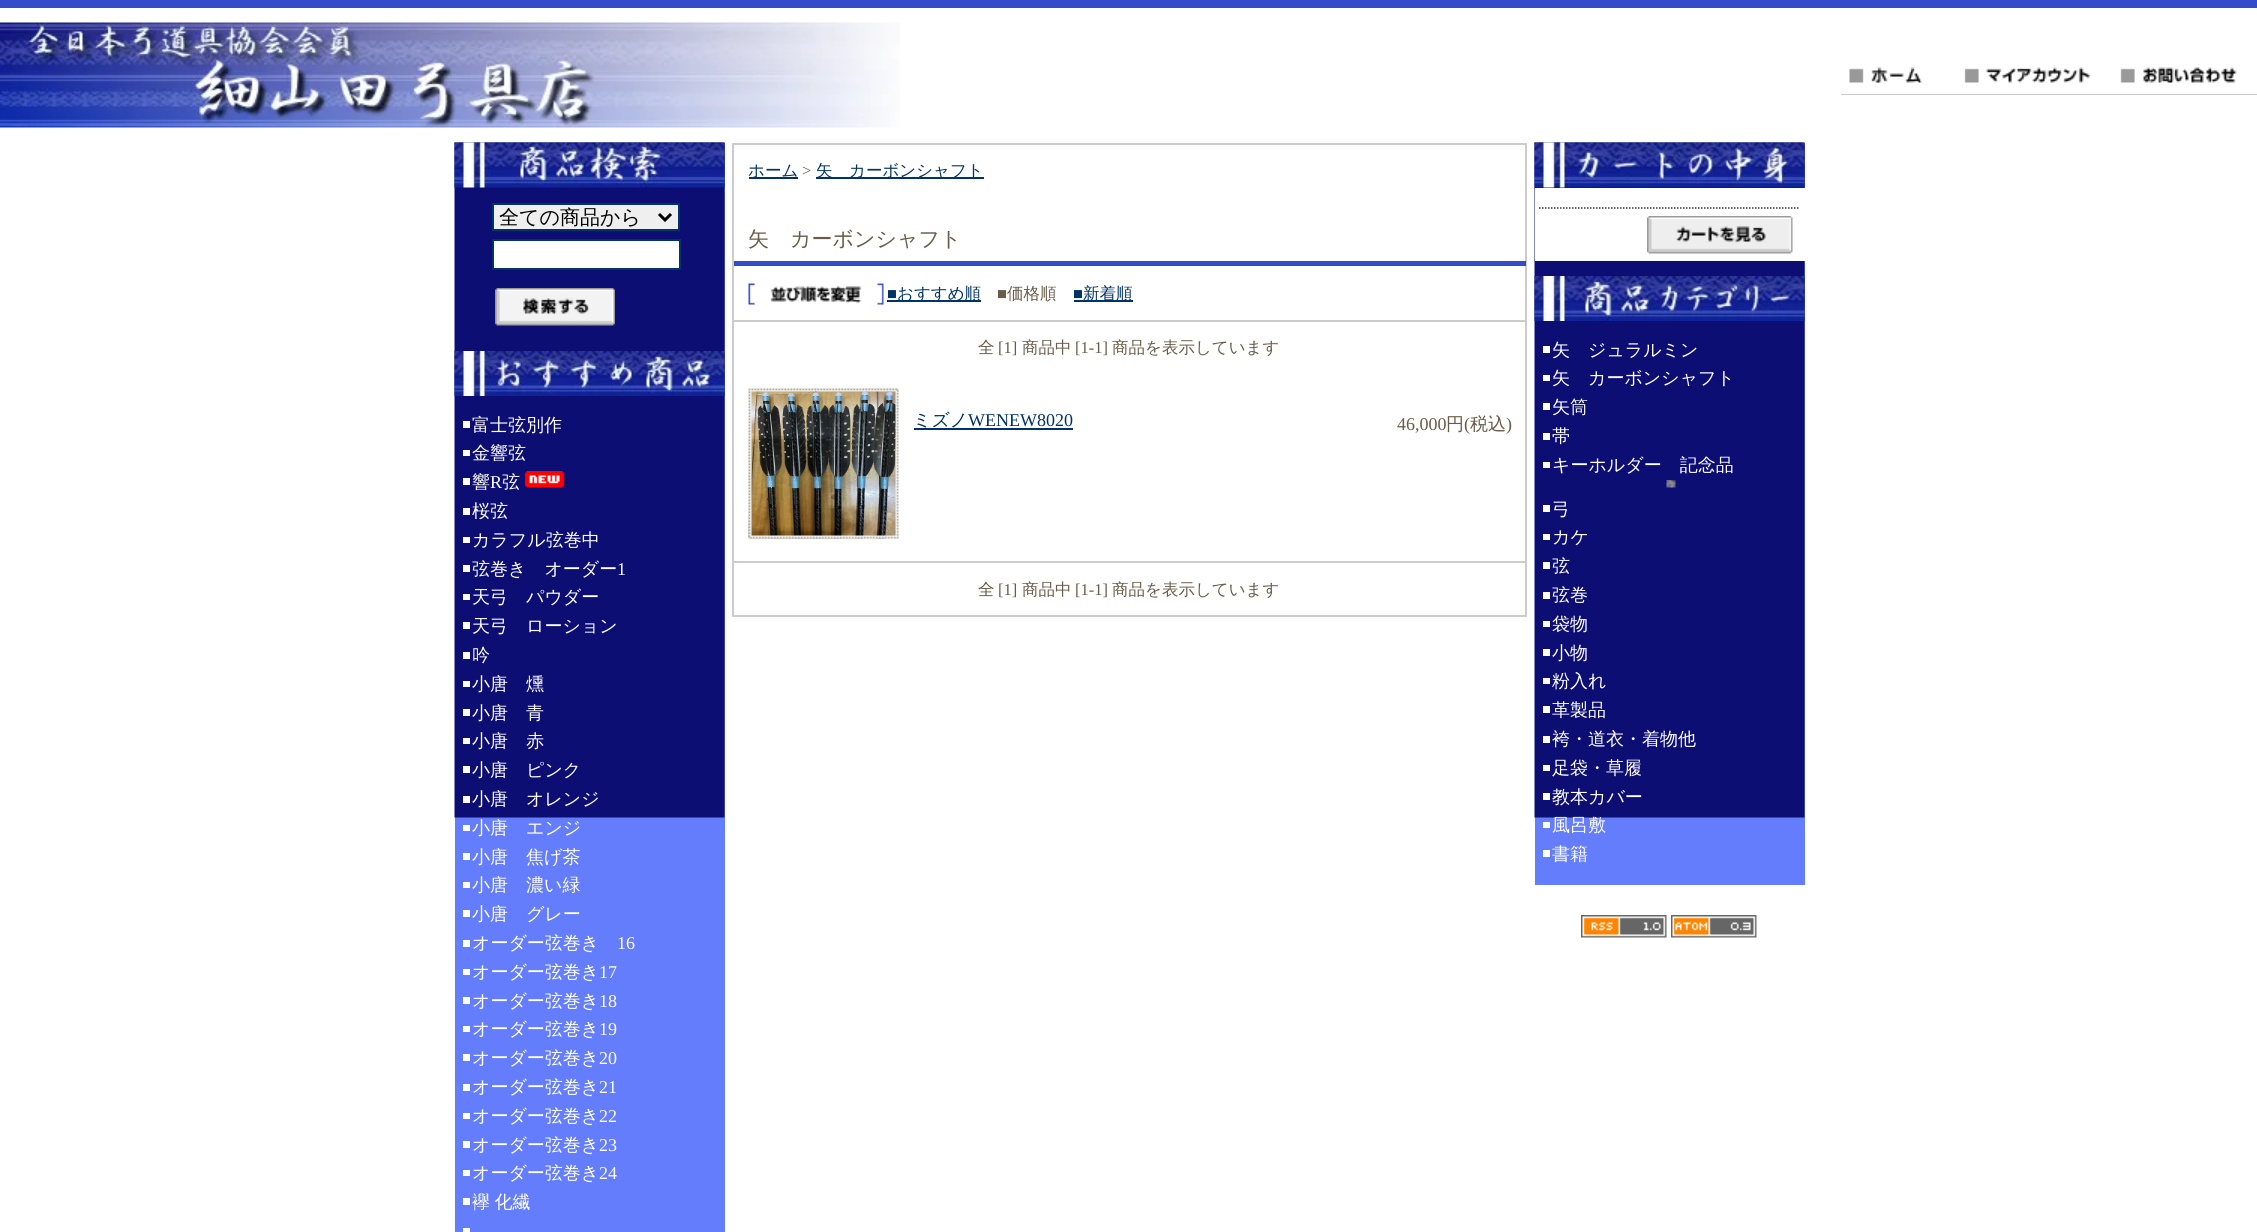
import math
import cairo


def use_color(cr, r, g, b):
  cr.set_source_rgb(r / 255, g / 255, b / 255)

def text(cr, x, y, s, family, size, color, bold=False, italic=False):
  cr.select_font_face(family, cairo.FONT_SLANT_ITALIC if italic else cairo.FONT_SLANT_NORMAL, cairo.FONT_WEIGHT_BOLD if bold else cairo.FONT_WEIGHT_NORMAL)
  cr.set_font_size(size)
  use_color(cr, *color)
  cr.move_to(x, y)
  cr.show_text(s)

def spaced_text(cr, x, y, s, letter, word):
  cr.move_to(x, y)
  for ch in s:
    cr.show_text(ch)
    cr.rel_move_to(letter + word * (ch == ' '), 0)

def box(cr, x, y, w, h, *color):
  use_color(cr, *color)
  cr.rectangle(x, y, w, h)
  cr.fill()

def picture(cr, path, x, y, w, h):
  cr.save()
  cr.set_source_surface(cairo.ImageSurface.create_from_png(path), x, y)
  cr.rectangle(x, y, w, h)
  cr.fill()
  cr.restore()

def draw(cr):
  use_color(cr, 255, 255, 255)
  cr.paint()
  box(cr, 0, 0, 2257, 8, 51, 76, 204)
  picture(cr, "img_01.png", 0, 22, 900, 106)
  box(cr, 1841, 68, 416, 27, 153, 153, 153)
  picture(cr, "img_02.png", 1841, 57, 115, 38)
  picture(cr, "img_03.png", 1956, 57, 156, 38)
  picture(cr, "img_04.png", 2112, 57, 145, 38)
  box(cr, 455, 143, 270, 1089, 100, 125, 252)
  picture(cr, "img_05.png", 454, 142, 271, 676)
  picture(cr, "img_06.png", 454, 142, 271, 46)
  use_color(cr, 239, 239, 239)
  cr.rectangle(493, 204, 186, 26)
  cr.fill_preserve()
  use_color(cr, 0, 51, 102)
  cr.stroke()
  cr.new_path()
  cr.move_to(659, 214)
  cr.line_to(665, 220)
  cr.line_to(671, 214)
  use_color(cr, 0, 0, 0)
  cr.set_line_width(3)
  cr.stroke()
  use_color(cr, 255, 255, 255)
  cr.rectangle(493, 240, 187, 29)
  cr.fill_preserve()
  use_color(cr, 0, 51, 102)
  cr.set_line_width(2)
  cr.stroke()
  picture(cr, "img_07.png", 495, 288, 120, 38)
  picture(cr, "img_08.png", 454, 351, 271, 45)
  box(cr, 463, 421, 7, 7, 255, 255, 255)
  box(cr, 463, 450, 7, 6, 255, 255, 255)
  box(cr, 463, 478, 7, 7, 255, 255, 255)
  picture(cr, "img_09.png", 524, 471, 41, 17)
  box(cr, 463, 508, 7, 7, 255, 255, 255)
  box(cr, 463, 537, 7, 6, 255, 255, 255)
  box(cr, 463, 565, 7, 7, 255, 255, 255)
  box(cr, 463, 594, 7, 6, 255, 255, 255)
  box(cr, 463, 622, 7, 7, 255, 255, 255)
  box(cr, 463, 652, 7, 7, 255, 255, 255)
  box(cr, 463, 681, 7, 6, 255, 255, 255)
  box(cr, 463, 709, 7, 7, 255, 255, 255)
  box(cr, 463, 738, 7, 6, 255, 255, 255)
  box(cr, 463, 766, 7, 7, 255, 255, 255)
  box(cr, 463, 796, 7, 7, 255, 255, 255)
  box(cr, 463, 825, 7, 6, 255, 255, 255)
  box(cr, 463, 853, 7, 7, 255, 255, 255)
  box(cr, 463, 882, 7, 6, 255, 255, 255)
  box(cr, 463, 910, 7, 7, 255, 255, 255)
  box(cr, 463, 940, 7, 7, 255, 255, 255)
  box(cr, 463, 969, 7, 6, 255, 255, 255)
  box(cr, 463, 997, 7, 7, 255, 255, 255)
  box(cr, 463, 1026, 7, 6, 255, 255, 255)
  box(cr, 463, 1054, 7, 7, 255, 255, 255)
  box(cr, 463, 1084, 7, 7, 255, 255, 255)
  box(cr, 463, 1113, 7, 6, 255, 255, 255)
  box(cr, 463, 1141, 7, 7, 255, 255, 255)
  box(cr, 463, 1170, 7, 6, 255, 255, 255)
  box(cr, 463, 1198, 7, 7, 255, 255, 255)
  box(cr, 463, 1228, 7, 4, 255, 255, 255)
  cr.rectangle(733, 144, 793, 472)
  use_color(cr, 204, 204, 204)
  cr.stroke()
  box(cr, 749, 177, 49, 2, 0, 51, 102)
  box(cr, 816, 177, 168, 2, 0, 51, 102)
  box(cr, 734, 261, 792, 5, 51, 76, 204)
  box(cr, 734, 320, 792, 2, 204, 204, 204)
  picture(cr, "img_10.png", 748, 283, 136, 22)
  box(cr, 887, 300, 94, 2, 0, 51, 102)
  box(cr, 1074, 300, 59, 2, 0, 51, 102)
  box(cr, 734, 561, 792, 2, 204, 204, 204)
  picture(cr, "img_11.png", 748, 388, 151, 151)
  picture(cr, "img_12.png", 748, 388, 151, 151)
  box(cr, 914, 428, 159, 2, 0, 51, 102)
  box(cr, 1535, 143, 270, 742, 100, 125, 252)
  picture(cr, "img_05.png", 1534, 142, 271, 676)
  picture(cr, "img_13.png", 1534, 142, 271, 46)
  box(cr, 1535, 188, 270, 73, 255, 255, 255)
  cr.new_path()
  cr.move_to(1539, 208)
  cr.line_to(1800, 208)
  use_color(cr, 51, 51, 51)
  cr.set_line_width(1.5)
  cr.set_dash([1.5, 1.5])
  cr.stroke()
  picture(cr, "img_14.png", 1647, 216, 146, 38)
  picture(cr, "img_15.png", 1534, 276, 271, 45)
  box(cr, 1543, 346, 7, 7, 255, 255, 255)
  box(cr, 1543, 375, 7, 6, 255, 255, 255)
  box(cr, 1543, 403, 7, 7, 255, 255, 255)
  box(cr, 1543, 433, 7, 7, 255, 255, 255)
  box(cr, 1543, 462, 7, 6, 255, 255, 255)
  picture(cr, "img_16.png", 1666, 480, 10, 8)
  box(cr, 1543, 505, 7, 7, 255, 255, 255)
  box(cr, 1543, 534, 7, 6, 255, 255, 255)
  box(cr, 1543, 562, 7, 7, 255, 255, 255)
  box(cr, 1543, 592, 7, 7, 255, 255, 255)
  box(cr, 1543, 621, 7, 6, 255, 255, 255)
  box(cr, 1543, 649, 7, 7, 255, 255, 255)
  box(cr, 1543, 678, 7, 6, 255, 255, 255)
  box(cr, 1543, 706, 7, 7, 255, 255, 255)
  box(cr, 1543, 736, 7, 7, 255, 255, 255)
  box(cr, 1543, 765, 7, 6, 255, 255, 255)
  box(cr, 1543, 793, 7, 7, 255, 255, 255)
  box(cr, 1543, 822, 7, 6, 255, 255, 255)
  box(cr, 1543, 850, 7, 7, 255, 255, 255)
  picture(cr, "img_17.png", 1581, 915, 86, 23)
  picture(cr, "img_18.png", 1671, 915, 86, 23)
  text(cr, 499, 224, "全ての商品から", "WenQuanYi Zen Hei Medium", 20, (0, 0, 0))
  text(cr, 472, 431, "富士弦別作", "WenQuanYi Zen Hei Medium", 18, (255, 255, 255))
  text(cr, 472, 459, "金響弦", "WenQuanYi Zen Hei Medium", 18, (255, 255, 255))
  text(cr, 472, 488, "響", "WenQuanYi Zen Hei Medium", 18, (255, 255, 255))
  text(cr, 490, 488, "R", "Liberation Serif", 18, (255, 255, 255))
  text(cr, 502, 488, "弦", "WenQuanYi Zen Hei Medium", 18, (255, 255, 255))
  text(cr, 472, 517, "桜弦", "WenQuanYi Zen Hei Medium", 18, (255, 255, 255))
  text(cr, 472, 546, "カラフル弦巻中", "WenQuanYi Zen Hei Medium", 18, (255, 255, 255))
  text(cr, 472, 575, "弦巻き　オーダー", "WenQuanYi Zen Hei Medium", 18, (255, 255, 255))
  text(cr, 617, 575, "1", "Liberation Serif", 18, (255, 255, 255))
  text(cr, 472, 603, "天弓　パウダー", "WenQuanYi Zen Hei Medium", 18, (255, 255, 255))
  text(cr, 472, 632, "天弓　ローション", "WenQuanYi Zen Hei Medium", 18, (255, 255, 255))
  text(cr, 472, 661, "吟", "WenQuanYi Zen Hei Medium", 18, (255, 255, 255))
  text(cr, 472, 690, "小唐　燻", "WenQuanYi Zen Hei Medium", 18, (255, 255, 255))
  text(cr, 472, 719, "小唐　青", "WenQuanYi Zen Hei Medium", 18, (255, 255, 255))
  text(cr, 472, 747, "小唐　赤", "WenQuanYi Zen Hei Medium", 18, (255, 255, 255))
  text(cr, 472, 776, "小唐　ピンク", "WenQuanYi Zen Hei Medium", 18, (255, 255, 255))
  text(cr, 472, 805, "小唐　オレンジ", "WenQuanYi Zen Hei Medium", 18, (255, 255, 255))
  text(cr, 472, 834, "小唐　エンジ", "WenQuanYi Zen Hei Medium", 18, (255, 255, 255))
  text(cr, 472, 863, "小唐　焦げ茶", "WenQuanYi Zen Hei Medium", 18, (255, 255, 255))
  text(cr, 472, 891, "小唐　濃い緑", "WenQuanYi Zen Hei Medium", 18, (255, 255, 255))
  text(cr, 472, 920, "小唐　グレー", "WenQuanYi Zen Hei Medium", 18, (255, 255, 255))
  text(cr, 472, 949, "オーダー弦巻き", "WenQuanYi Zen Hei Medium", 18, (255, 255, 255))
  text(cr, 617, 949, "16", "Liberation Serif", 18, (255, 255, 255))
  text(cr, 472, 978, "オーダー弦巻き", "WenQuanYi Zen Hei Medium", 18, (255, 255, 255))
  text(cr, 599, 978, "17", "Liberation Serif", 18, (255, 255, 255))
  text(cr, 472, 1007, "オーダー弦巻き", "WenQuanYi Zen Hei Medium", 18, (255, 255, 255))
  text(cr, 599, 1007, "18", "Liberation Serif", 18, (255, 255, 255))
  text(cr, 472, 1035, "オーダー弦巻き", "WenQuanYi Zen Hei Medium", 18, (255, 255, 255))
  text(cr, 599, 1035, "19", "Liberation Serif", 18, (255, 255, 255))
  text(cr, 472, 1064, "オーダー弦巻き", "WenQuanYi Zen Hei Medium", 18, (255, 255, 255))
  text(cr, 599, 1064, "20", "Liberation Serif", 18, (255, 255, 255))
  text(cr, 472, 1093, "オーダー弦巻き", "WenQuanYi Zen Hei Medium", 18, (255, 255, 255))
  text(cr, 599, 1093, "21", "Liberation Serif", 18, (255, 255, 255))
  text(cr, 472, 1122, "オーダー弦巻き", "WenQuanYi Zen Hei Medium", 18, (255, 255, 255))
  text(cr, 599, 1122, "22", "Liberation Serif", 18, (255, 255, 255))
  text(cr, 472, 1151, "オーダー弦巻き", "WenQuanYi Zen Hei Medium", 18, (255, 255, 255))
  text(cr, 599, 1151, "23", "Liberation Serif", 18, (255, 255, 255))
  text(cr, 472, 1179, "オーダー弦巻き", "WenQuanYi Zen Hei Medium", 18, (255, 255, 255))
  text(cr, 599, 1179, "24", "Liberation Serif", 18, (255, 255, 255))
  cr.select_font_face("WenQuanYi Zen Hei Medium")
  spaced_text(cr, 472, 1208, "襷 化繊", 0, -1)
  text(cr, 748, 176, "ホーム", "WenQuanYi Zen Hei Medium", 16.5, (0, 51, 102))
  text(cr, 802, 176, ">", "Liberation Serif", 16.5, (105, 91, 72))
  text(cr, 816, 176, "矢　カーボンシャフト", "WenQuanYi Zen Hei Medium", 16.5, (0, 51, 102))
  text(cr, 748, 246, "矢　カーボンシャフト", "WenQuanYi Zen Hei Medium", 21, (105, 91, 72))
  text(cr, 887, 299, "■", "Liberation Serif", 16.5, (0, 51, 102))
  text(cr, 897, 299, "おすすめ順", "WenQuanYi Zen Hei Medium", 16.5, (0, 51, 102))
  text(cr, 997, 299, "■", "Liberation Serif", 16.5, (105, 91, 72))
  text(cr, 1007, 299, "価格順", "WenQuanYi Zen Hei Medium", 16.5, (105, 91, 72))
  text(cr, 1073, 299, "■", "Liberation Serif", 16.5, (0, 51, 102))
  text(cr, 1083, 299, "新着順", "WenQuanYi Zen Hei Medium", 16.5, (0, 51, 102))
  text(cr, 978, 353, "全", "WenQuanYi Zen Hei Medium", 16.5, (105, 91, 72))
  text(cr, 998, 353, "[1]", "Liberation Serif", 16.5, (105, 91, 72))
  text(cr, 1022, 353, "商品中", "WenQuanYi Zen Hei Medium", 16.5, (105, 91, 72))
  text(cr, 1075, 353, "[1-1]", "Liberation Serif", 16.5, (105, 91, 72))
  text(cr, 1112, 353, "商品を表示しています", "WenQuanYi Zen Hei Medium", 16.5, (105, 91, 72))
  text(cr, 913, 426, "ミズノ", "WenQuanYi Zen Hei Medium", 18, (0, 51, 102))
  text(cr, 968, 426, "WENEW8020", "Liberation Serif", 18, (0, 51, 102))
  text(cr, 1397, 430, "46,000", "Liberation Serif", 18, (105, 91, 72))
  text(cr, 1446, 430, "円", "WenQuanYi Zen Hei Medium", 18, (105, 91, 72))
  text(cr, 1464, 430, "(", "Liberation Serif", 18, (105, 91, 72))
  text(cr, 1470, 430, "税込", "WenQuanYi Zen Hei Medium", 18, (105, 91, 72))
  text(cr, 1506, 430, ")", "Liberation Serif", 18, (105, 91, 72))
  text(cr, 978, 595, "全", "WenQuanYi Zen Hei Medium", 16.5, (105, 91, 72))
  text(cr, 998, 595, "[1]", "Liberation Serif", 16.5, (105, 91, 72))
  text(cr, 1022, 595, "商品中", "WenQuanYi Zen Hei Medium", 16.5, (105, 91, 72))
  text(cr, 1075, 595, "[1-1]", "Liberation Serif", 16.5, (105, 91, 72))
  text(cr, 1112, 595, "商品を表示しています", "WenQuanYi Zen Hei Medium", 16.5, (105, 91, 72))
  text(cr, 1552, 356, "矢　ジュラルミン", "WenQuanYi Zen Hei Medium", 18, (255, 255, 255))
  text(cr, 1552, 384, "矢　カーボンシャフト", "WenQuanYi Zen Hei Medium", 18, (255, 255, 255))
  text(cr, 1552, 413, "矢筒", "WenQuanYi Zen Hei Medium", 18, (255, 255, 255))
  text(cr, 1552, 442, "帯", "WenQuanYi Zen Hei Medium", 18, (255, 255, 255))
  text(cr, 1552, 471, "キーホルダー　記念品", "WenQuanYi Zen Hei Medium", 18, (255, 255, 255))
  text(cr, 1552, 515, "弓", "WenQuanYi Zen Hei Medium", 18, (255, 255, 255))
  text(cr, 1552, 543, "カケ", "WenQuanYi Zen Hei Medium", 18, (255, 255, 255))
  text(cr, 1552, 572, "弦", "WenQuanYi Zen Hei Medium", 18, (255, 255, 255))
  text(cr, 1552, 601, "弦巻", "WenQuanYi Zen Hei Medium", 18, (255, 255, 255))
  text(cr, 1552, 630, "袋物", "WenQuanYi Zen Hei Medium", 18, (255, 255, 255))
  text(cr, 1552, 659, "小物", "WenQuanYi Zen Hei Medium", 18, (255, 255, 255))
  text(cr, 1552, 687, "粉入れ", "WenQuanYi Zen Hei Medium", 18, (255, 255, 255))
  text(cr, 1552, 716, "革製品", "WenQuanYi Zen Hei Medium", 18, (255, 255, 255))
  text(cr, 1552, 745, "袴・道衣・着物他", "WenQuanYi Zen Hei Medium", 18, (255, 255, 255))
  text(cr, 1552, 774, "足袋・草履", "WenQuanYi Zen Hei Medium", 18, (255, 255, 255))
  text(cr, 1552, 803, "教本カバー", "WenQuanYi Zen Hei Medium", 18, (255, 255, 255))
  text(cr, 1552, 831, "風呂敷", "WenQuanYi Zen Hei Medium", 18, (255, 255, 255))
  text(cr, 1552, 860, "書籍", "WenQuanYi Zen Hei Medium", 18, (255, 255, 255))


surface = cairo.ImageSurface(cairo.FORMAT_RGB24, 2257, 1232)
cr = cairo.Context(surface)
options = cairo.FontOptions()
options.set_hint_metrics(cairo.HINT_METRICS_OFF)
options.set_hint_style(cairo.HINT_STYLE_NONE)
cr.set_font_options(options)
cr.set_miter_limit(4)
draw(cr)
surface.write_to_png("out.png")
